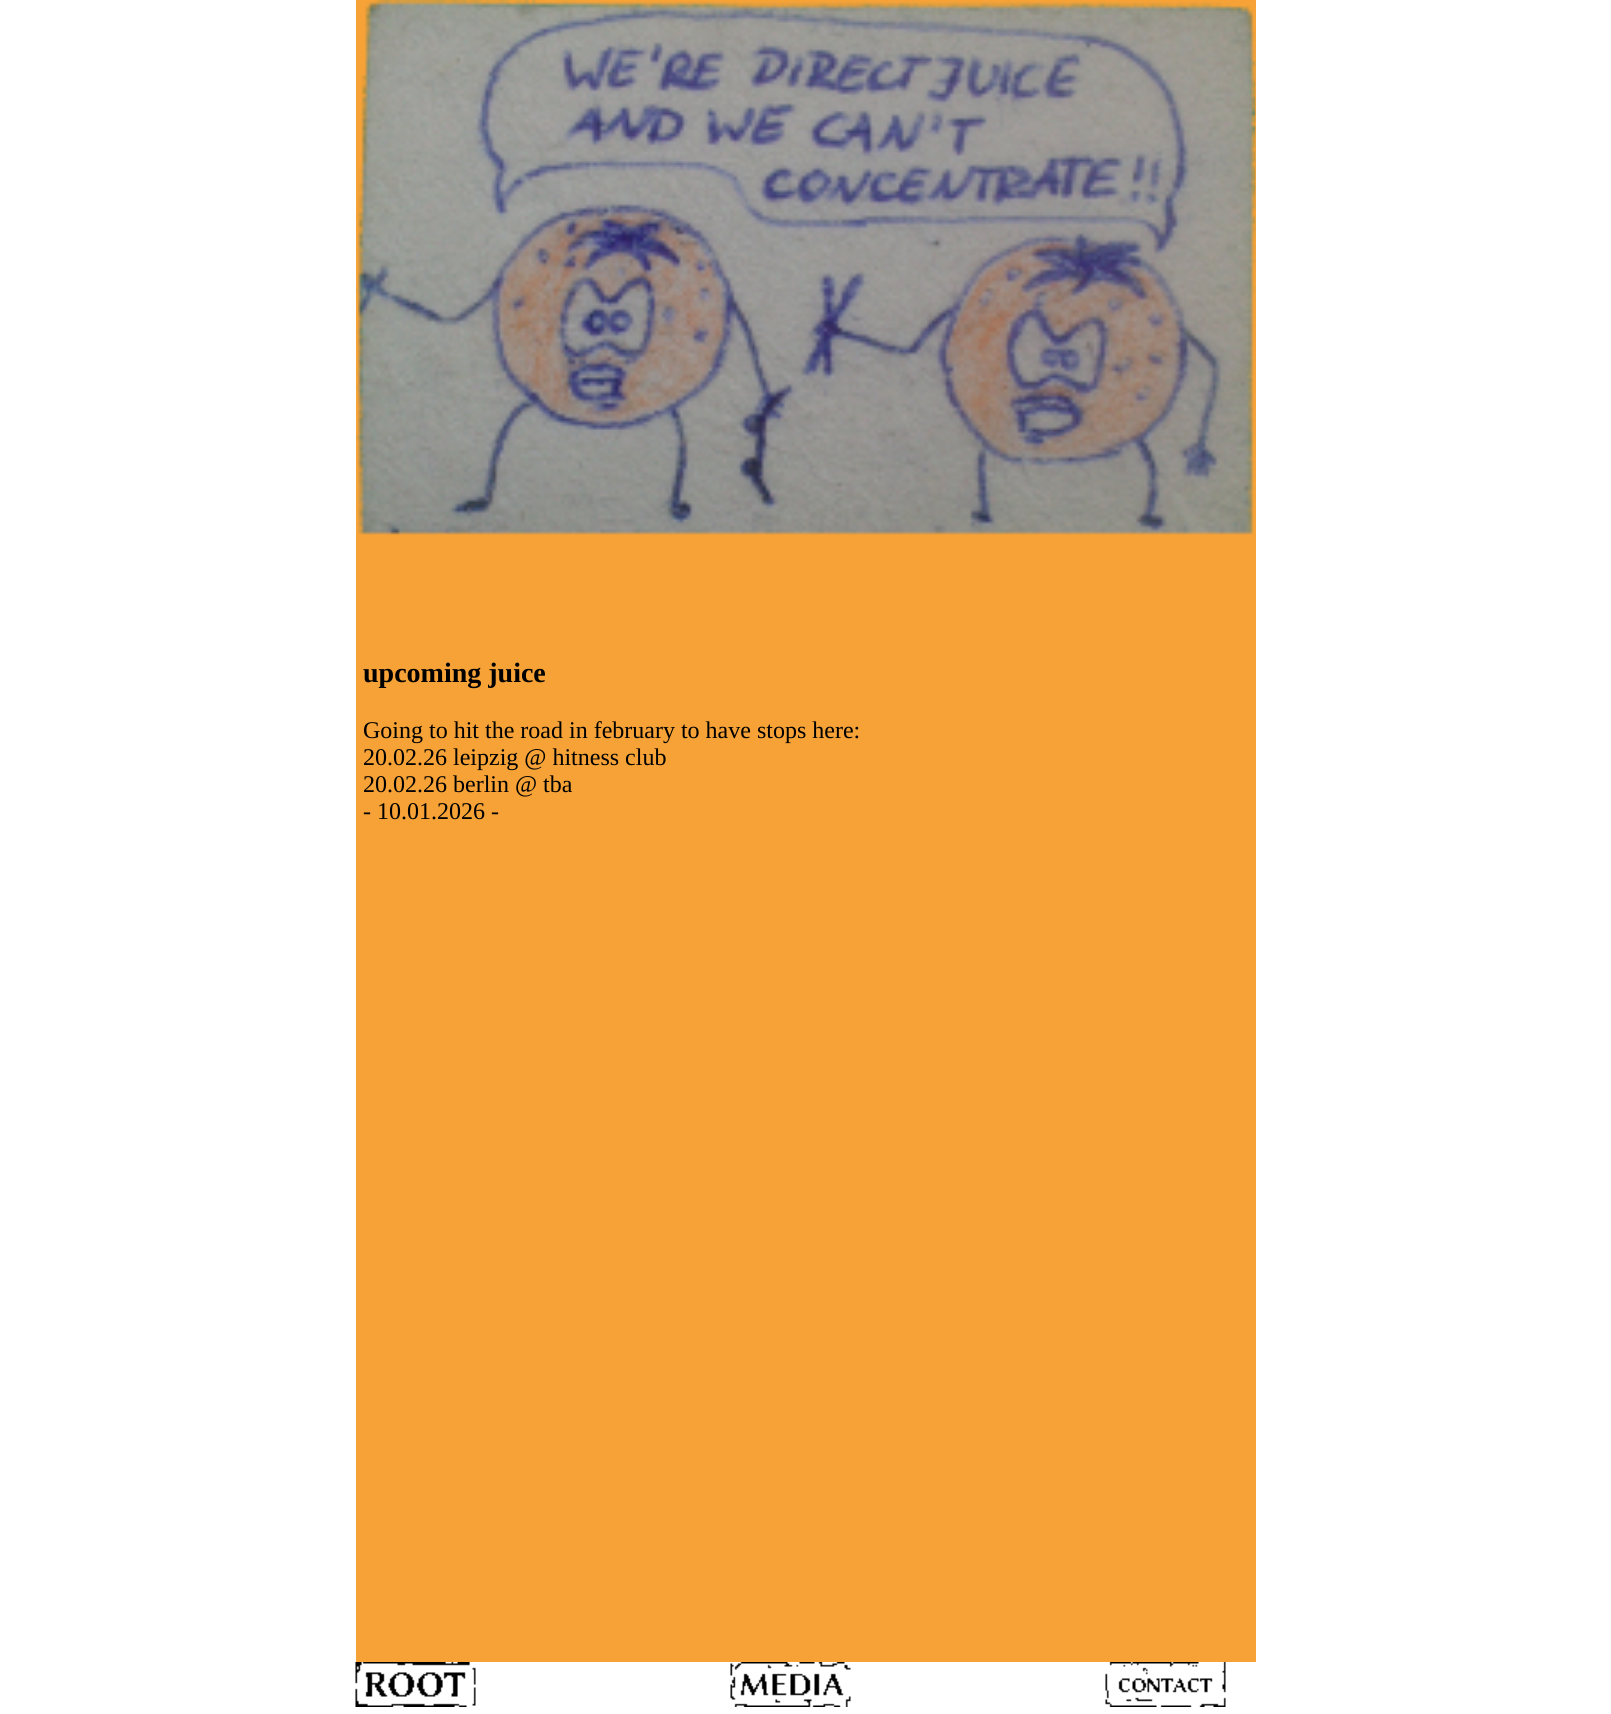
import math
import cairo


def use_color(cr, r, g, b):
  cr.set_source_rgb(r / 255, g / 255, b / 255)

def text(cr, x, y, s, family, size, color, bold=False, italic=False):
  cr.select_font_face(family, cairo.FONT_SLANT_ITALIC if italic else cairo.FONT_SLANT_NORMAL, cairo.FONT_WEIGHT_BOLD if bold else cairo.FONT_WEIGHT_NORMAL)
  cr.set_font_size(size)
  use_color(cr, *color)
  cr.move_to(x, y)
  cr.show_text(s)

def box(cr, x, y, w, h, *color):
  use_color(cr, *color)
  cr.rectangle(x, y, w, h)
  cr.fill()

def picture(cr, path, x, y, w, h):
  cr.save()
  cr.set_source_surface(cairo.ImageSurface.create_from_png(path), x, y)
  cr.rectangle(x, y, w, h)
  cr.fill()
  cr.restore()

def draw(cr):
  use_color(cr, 255, 255, 255)
  cr.paint()
  box(cr, 356, 0, 900, 1662, 246, 162, 55)
  picture(cr, "img_01.png", 355, 0, 901, 535)
  picture(cr, "img_02.png", 355, 1662, 121, 45)
  picture(cr, "img_03.png", 730, 1662, 121, 45)
  picture(cr, "img_04.png", 1105, 1662, 121, 45)
  text(cr, 363, 682, "upcoming juice", "Liberation Serif", 28, (0, 0, 0), bold=True)
  text(cr, 363, 738, "Going to hit the road in february to have stops here:", "Liberation Serif", 24, (0, 0, 0))
  text(cr, 363, 765, "20.02.26 leipzig @ hitness club", "Liberation Serif", 24, (0, 0, 0))
  text(cr, 363, 792, "20.02.26 berlin @ tba", "Liberation Serif", 24, (0, 0, 0))
  text(cr, 363, 819, "- 10.01.2026 -", "Liberation Serif", 24, (0, 0, 0))


surface = cairo.ImageSurface(cairo.FORMAT_RGB24, 1611, 1714)
cr = cairo.Context(surface)
options = cairo.FontOptions()
options.set_hint_metrics(cairo.HINT_METRICS_OFF)
options.set_hint_style(cairo.HINT_STYLE_NONE)
cr.set_font_options(options)
cr.set_miter_limit(4)
draw(cr)
surface.write_to_png("out.png")
